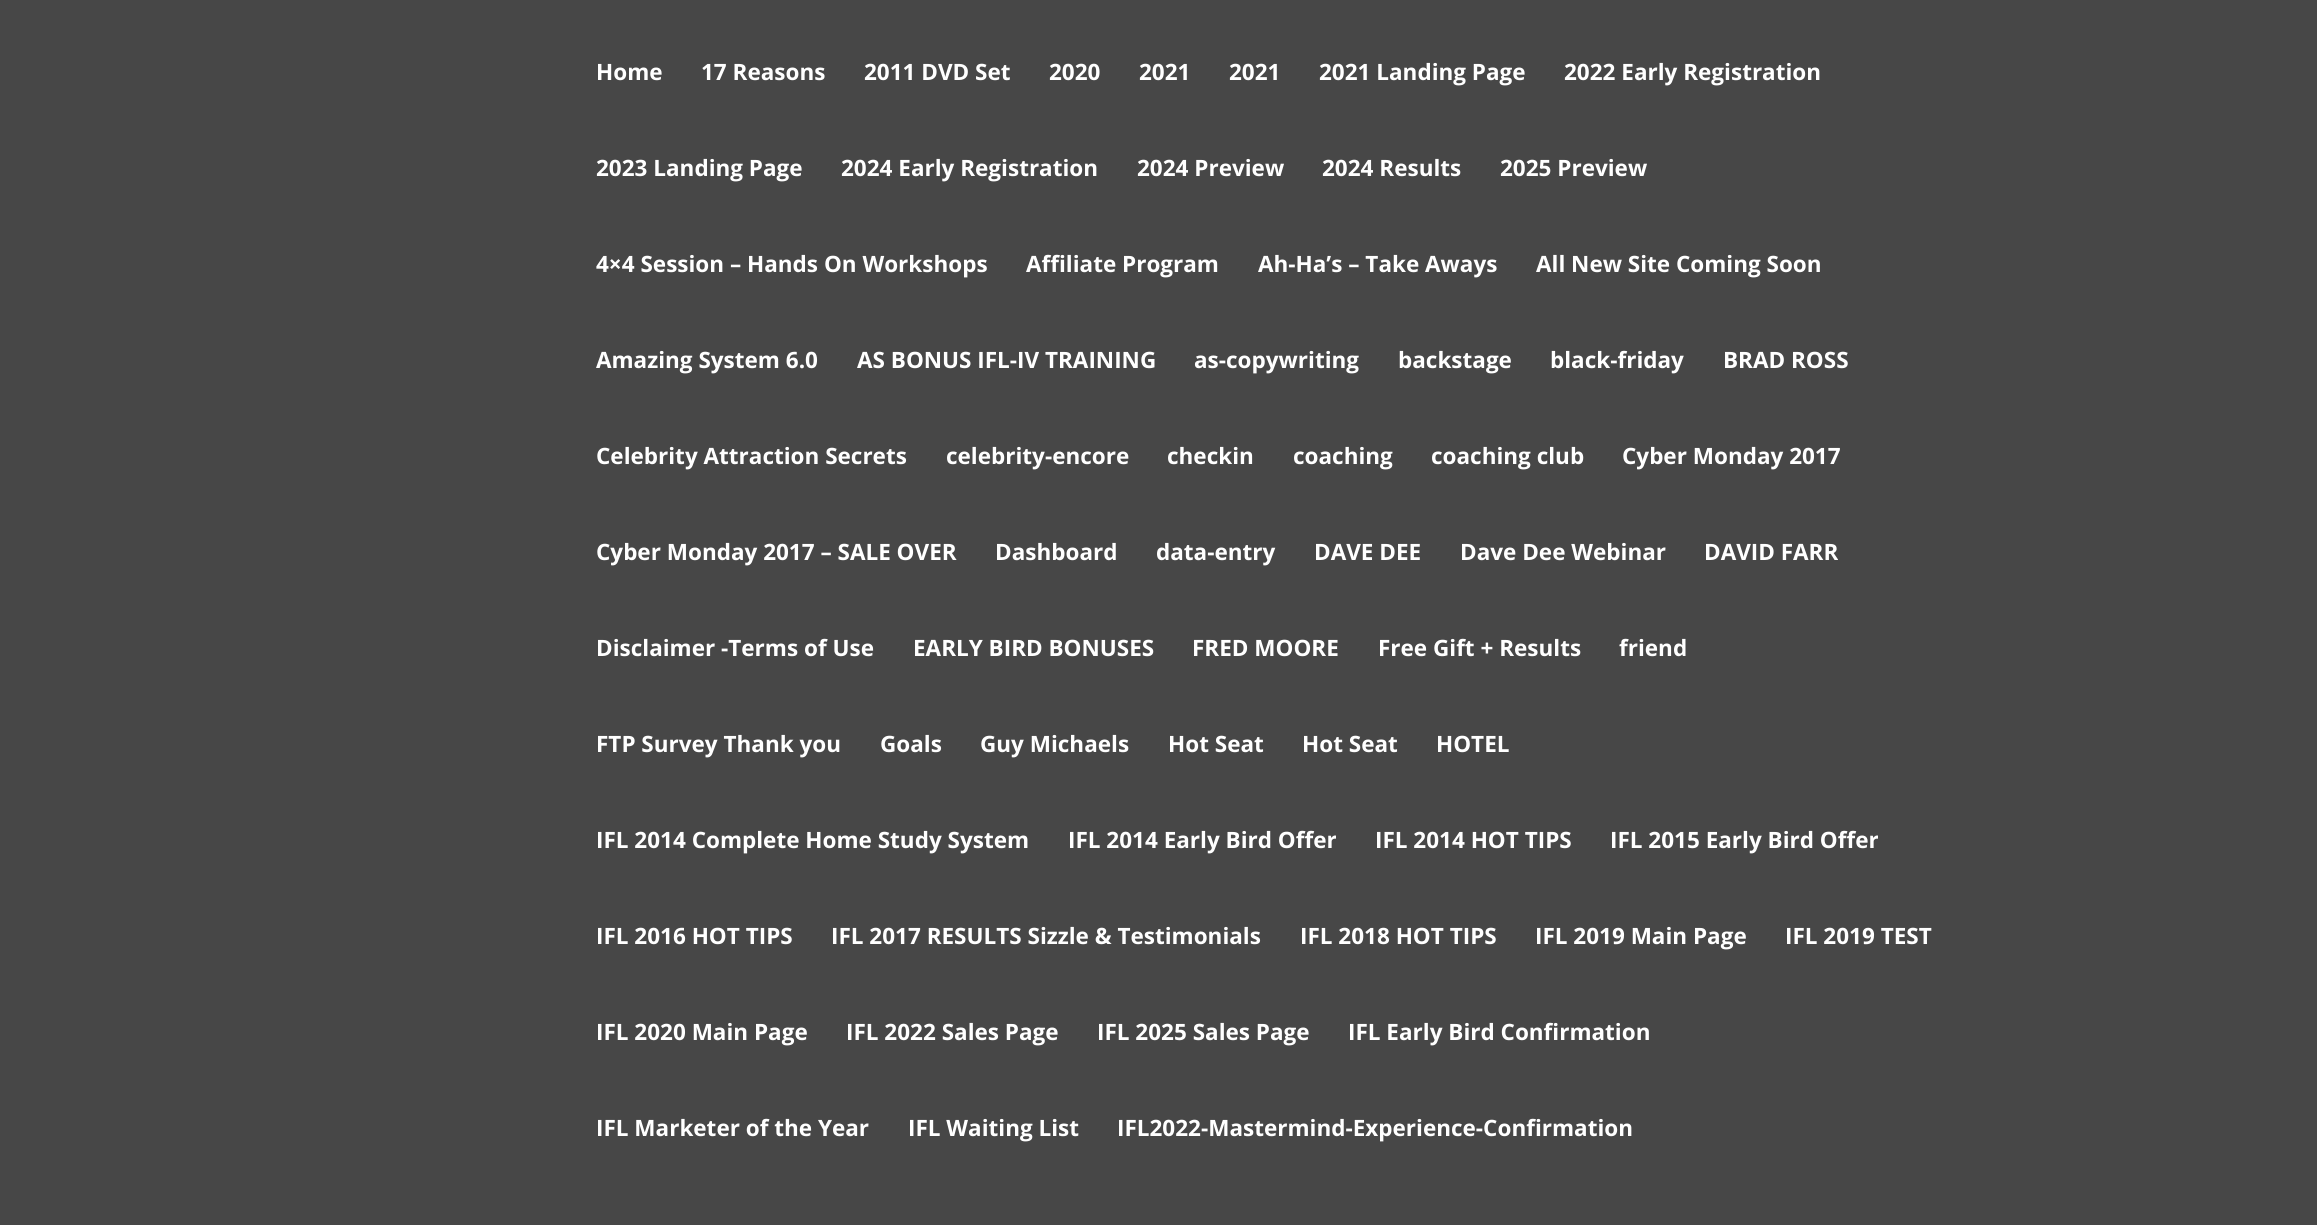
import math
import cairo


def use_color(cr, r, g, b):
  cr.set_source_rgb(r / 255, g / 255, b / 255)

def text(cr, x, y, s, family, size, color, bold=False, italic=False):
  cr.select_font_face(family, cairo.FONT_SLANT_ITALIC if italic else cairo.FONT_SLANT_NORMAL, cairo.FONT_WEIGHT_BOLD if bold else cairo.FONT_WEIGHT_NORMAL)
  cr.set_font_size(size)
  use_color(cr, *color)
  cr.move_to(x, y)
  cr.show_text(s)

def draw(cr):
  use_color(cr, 71, 71, 71)
  cr.paint()
  text(cr, 596, 80, "Home", "Open Sans", 22.5, (255, 255, 255), bold=True)
  text(cr, 701, 80, "17 Reasons", "Open Sans", 22.5, (255, 255, 255), bold=True)
  text(cr, 864, 80, "2011 DVD Set", "Open Sans", 22.5, (255, 255, 255), bold=True)
  text(cr, 1049, 80, "2020", "Open Sans", 22.5, (255, 255, 255), bold=True)
  text(cr, 1139, 80, "2021", "Open Sans", 22.5, (255, 255, 255), bold=True)
  text(cr, 1229, 80, "2021", "Open Sans", 22.5, (255, 255, 255), bold=True)
  text(cr, 1319, 80, "2021 Landing Page", "Open Sans", 22.5, (255, 255, 255), bold=True)
  text(cr, 1564, 80, "2022 Early Registration", "Open Sans", 22.5, (255, 255, 255), bold=True)
  text(cr, 596, 176, "2023 Landing Page", "Open Sans", 22.5, (255, 255, 255), bold=True)
  text(cr, 841, 176, "2024 Early Registration", "Open Sans", 22.5, (255, 255, 255), bold=True)
  text(cr, 1137, 176, "2024 Preview", "Open Sans", 22.5, (255, 255, 255), bold=True)
  text(cr, 1322, 176, "2024 Results", "Open Sans", 22.5, (255, 255, 255), bold=True)
  text(cr, 1500, 176, "2025 Preview", "Open Sans", 22.5, (255, 255, 255), bold=True)
  text(cr, 596, 272, "4×4 Session – Hands On Workshops", "Open Sans", 22.5, (255, 255, 255), bold=True)
  text(cr, 1026, 272, "Affiliate Program", "Open Sans", 22.5, (255, 255, 255), bold=True)
  text(cr, 1258, 272, "Ah-Ha’s – Take Aways", "Open Sans", 22.5, (255, 255, 255), bold=True)
  text(cr, 1536, 272, "All New Site Coming Soon", "Open Sans", 22.5, (255, 255, 255), bold=True)
  text(cr, 596, 368, "Amazing System 6.0", "Open Sans", 22.5, (255, 255, 255), bold=True)
  text(cr, 857, 368, "AS BONUS IFL-IV TRAINING", "Open Sans", 22.5, (255, 255, 255), bold=True)
  text(cr, 1194, 368, "as-copywriting", "Open Sans", 22.5, (255, 255, 255), bold=True)
  text(cr, 1398, 368, "backstage", "Open Sans", 22.5, (255, 255, 255), bold=True)
  text(cr, 1550, 368, "black-friday", "Open Sans", 22.5, (255, 255, 255), bold=True)
  text(cr, 1723, 368, "BRAD ROSS", "Open Sans", 22.5, (255, 255, 255), bold=True)
  text(cr, 596, 464, "Celebrity Attraction Secrets", "Open Sans", 22.5, (255, 255, 255), bold=True)
  text(cr, 946, 464, "celebrity-encore", "Open Sans", 22.5, (255, 255, 255), bold=True)
  text(cr, 1167, 464, "checkin", "Open Sans", 22.5, (255, 255, 255), bold=True)
  text(cr, 1293, 464, "coaching", "Open Sans", 22.5, (255, 255, 255), bold=True)
  text(cr, 1431, 464, "coaching club", "Open Sans", 22.5, (255, 255, 255), bold=True)
  text(cr, 1622, 464, "Cyber Monday 2017", "Open Sans", 22.5, (255, 255, 255), bold=True)
  text(cr, 596, 560, "Cyber Monday 2017 – SALE OVER", "Open Sans", 22.5, (255, 255, 255), bold=True)
  text(cr, 995, 560, "Dashboard", "Open Sans", 22.5, (255, 255, 255), bold=True)
  text(cr, 1156, 560, "data-entry", "Open Sans", 22.5, (255, 255, 255), bold=True)
  text(cr, 1314, 560, "DAVE DEE", "Open Sans", 22.5, (255, 255, 255), bold=True)
  text(cr, 1460, 560, "Dave Dee Webinar", "Open Sans", 22.5, (255, 255, 255), bold=True)
  text(cr, 1704, 560, "DAVID FARR", "Open Sans", 22.5, (255, 255, 255), bold=True)
  text(cr, 596, 656, "Disclaimer -Terms of Use", "Open Sans", 22.5, (255, 255, 255), bold=True)
  text(cr, 913, 656, "EARLY BIRD BONUSES", "Open Sans", 22.5, (255, 255, 255), bold=True)
  text(cr, 1192, 656, "FRED MOORE", "Open Sans", 22.5, (255, 255, 255), bold=True)
  text(cr, 1378, 656, "Free Gift + Results", "Open Sans", 22.5, (255, 255, 255), bold=True)
  text(cr, 1619, 656, "friend", "Open Sans", 22.5, (255, 255, 255), bold=True)
  text(cr, 596, 752, "FTP Survey Thank you", "Open Sans", 22.5, (255, 255, 255), bold=True)
  text(cr, 880, 752, "Goals", "Open Sans", 22.5, (255, 255, 255), bold=True)
  text(cr, 980, 752, "Guy Michaels", "Open Sans", 22.5, (255, 255, 255), bold=True)
  text(cr, 1168, 752, "Hot Seat", "Open Sans", 22.5, (255, 255, 255), bold=True)
  text(cr, 1302, 752, "Hot Seat", "Open Sans", 22.5, (255, 255, 255), bold=True)
  text(cr, 1436, 752, "HOTEL", "Open Sans", 22.5, (255, 255, 255), bold=True)
  text(cr, 596, 848, "IFL 2014 Complete Home Study System", "Open Sans", 22.5, (255, 255, 255), bold=True)
  text(cr, 1068, 848, "IFL 2014 Early Bird Offer", "Open Sans", 22.5, (255, 255, 255), bold=True)
  text(cr, 1375, 848, "IFL 2014 HOT TIPS", "Open Sans", 22.5, (255, 255, 255), bold=True)
  text(cr, 1610, 848, "IFL 2015 Early Bird Offer", "Open Sans", 22.5, (255, 255, 255), bold=True)
  text(cr, 596, 944, "IFL 2016 HOT TIPS", "Open Sans", 22.5, (255, 255, 255), bold=True)
  text(cr, 831, 944, "IFL 2017 RESULTS Sizzle & Testimonials", "Open Sans", 22.5, (255, 255, 255), bold=True)
  text(cr, 1300, 944, "IFL 2018 HOT TIPS", "Open Sans", 22.5, (255, 255, 255), bold=True)
  text(cr, 1535, 944, "IFL 2019 Main Page", "Open Sans", 22.5, (255, 255, 255), bold=True)
  text(cr, 1785, 944, "IFL 2019 TEST", "Open Sans", 22.5, (255, 255, 255), bold=True)
  text(cr, 596, 1040, "IFL 2020 Main Page", "Open Sans", 22.5, (255, 255, 255), bold=True)
  text(cr, 846, 1040, "IFL 2022 Sales Page", "Open Sans", 22.5, (255, 255, 255), bold=True)
  text(cr, 1097, 1040, "IFL 2025 Sales Page", "Open Sans", 22.5, (255, 255, 255), bold=True)
  text(cr, 1348, 1040, "IFL Early Bird Confirmation", "Open Sans", 22.5, (255, 255, 255), bold=True)
  text(cr, 596, 1136, "IFL Marketer of the Year", "Open Sans", 22.5, (255, 255, 255), bold=True)
  text(cr, 908, 1136, "IFL Waiting List", "Open Sans", 22.5, (255, 255, 255), bold=True)
  text(cr, 1117, 1136, "IFL2022-Mastermind-Experience-Confirmation", "Open Sans", 22.5, (255, 255, 255), bold=True)


surface = cairo.ImageSurface(cairo.FORMAT_RGB24, 2317, 1225)
cr = cairo.Context(surface)
options = cairo.FontOptions()
options.set_hint_metrics(cairo.HINT_METRICS_OFF)
options.set_hint_style(cairo.HINT_STYLE_NONE)
cr.set_font_options(options)
cr.set_miter_limit(4)
draw(cr)
surface.write_to_png("out.png")
